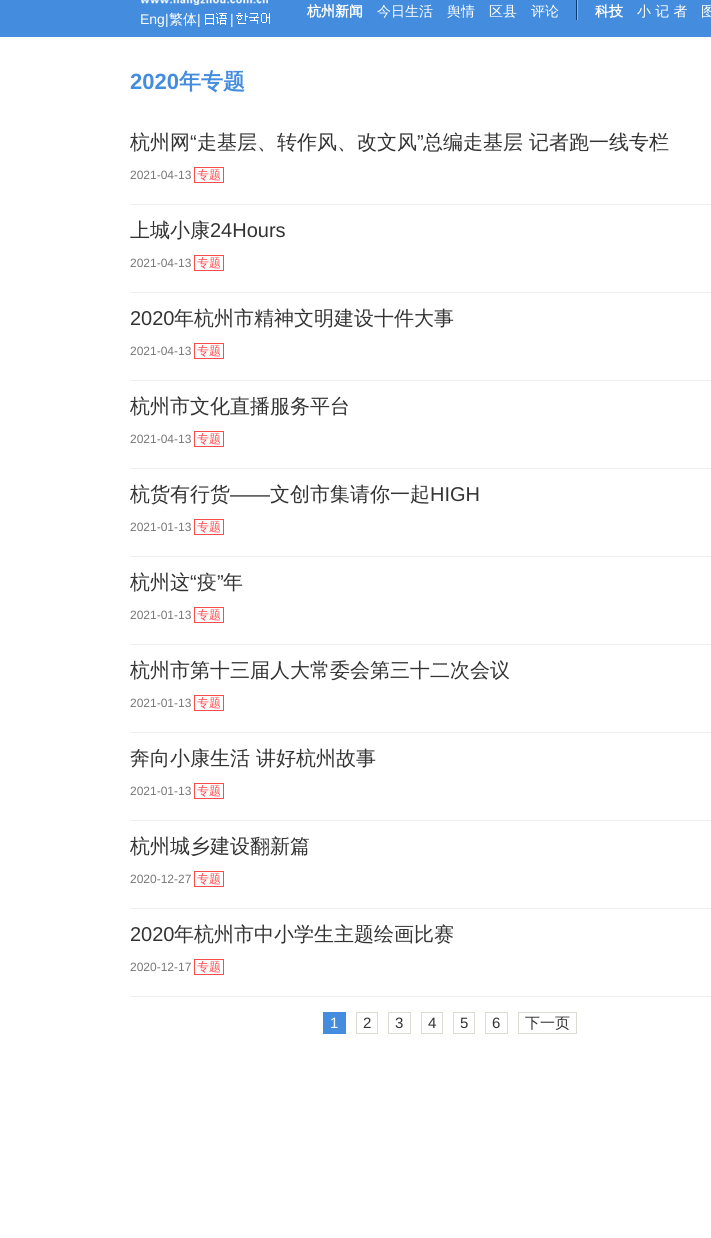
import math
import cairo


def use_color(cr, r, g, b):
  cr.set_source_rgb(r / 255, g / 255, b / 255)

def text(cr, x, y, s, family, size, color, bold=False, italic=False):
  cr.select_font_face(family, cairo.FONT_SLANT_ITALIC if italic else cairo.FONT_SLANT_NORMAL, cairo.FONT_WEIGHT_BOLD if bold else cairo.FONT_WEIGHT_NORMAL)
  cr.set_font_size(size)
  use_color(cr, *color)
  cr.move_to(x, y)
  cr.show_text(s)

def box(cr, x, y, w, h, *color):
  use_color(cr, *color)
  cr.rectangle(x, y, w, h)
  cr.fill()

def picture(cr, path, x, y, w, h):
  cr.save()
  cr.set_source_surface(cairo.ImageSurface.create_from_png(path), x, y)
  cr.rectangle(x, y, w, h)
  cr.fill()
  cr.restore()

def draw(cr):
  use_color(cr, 255, 255, 255)
  cr.paint()
  box(cr, 0, 0, 711, 37, 68, 140, 222)
  picture(cr, "img_01.png", 138, 0, 136, 7)
  picture(cr, "img_02.png", 200, 12, 27, 14)
  picture(cr, "img_03.png", 236, 13, 37, 13)
  picture(cr, "img_04.png", 576, 0, 2, 20)
  box(cr, 130, 204, 581, 1, 240, 240, 240)
  cr.rectangle(194.5, 167.5, 29, 15)
  use_color(cr, 252, 75, 75)
  cr.set_line_width(1)
  cr.stroke()
  box(cr, 130, 292, 581, 1, 240, 240, 240)
  cr.rectangle(194.5, 255.5, 29, 15)
  use_color(cr, 252, 75, 75)
  cr.stroke()
  box(cr, 130, 380, 581, 1, 240, 240, 240)
  cr.rectangle(194.5, 343.5, 29, 15)
  use_color(cr, 252, 75, 75)
  cr.stroke()
  box(cr, 130, 468, 581, 1, 240, 240, 240)
  cr.rectangle(194.5, 431.5, 29, 15)
  use_color(cr, 252, 75, 75)
  cr.stroke()
  box(cr, 130, 556, 581, 1, 240, 240, 240)
  cr.rectangle(194.5, 519.5, 29, 15)
  use_color(cr, 252, 75, 75)
  cr.stroke()
  box(cr, 130, 644, 581, 1, 240, 240, 240)
  cr.rectangle(194.5, 607.5, 29, 15)
  use_color(cr, 252, 75, 75)
  cr.stroke()
  box(cr, 130, 732, 581, 1, 240, 240, 240)
  cr.rectangle(194.5, 695.5, 29, 15)
  use_color(cr, 252, 75, 75)
  cr.stroke()
  box(cr, 130, 820, 581, 1, 240, 240, 240)
  cr.rectangle(194.5, 783.5, 29, 15)
  use_color(cr, 252, 75, 75)
  cr.stroke()
  box(cr, 130, 908, 581, 1, 240, 240, 240)
  cr.rectangle(194.5, 871.5, 29, 15)
  use_color(cr, 252, 75, 75)
  cr.stroke()
  box(cr, 130, 996, 581, 1, 240, 240, 240)
  cr.rectangle(194.5, 959.5, 29, 15)
  use_color(cr, 252, 75, 75)
  cr.stroke()
  box(cr, 323, 1012, 23, 22, 68, 140, 222)
  cr.rectangle(356.5, 1012.5, 21, 21)
  use_color(cr, 221, 218, 210)
  cr.stroke()
  cr.rectangle(388.5, 1012.5, 22, 21)
  cr.stroke()
  cr.rectangle(421.5, 1012.5, 21, 21)
  cr.stroke()
  cr.rectangle(453.5, 1012.5, 21, 21)
  cr.stroke()
  cr.rectangle(485.5, 1012.5, 22, 21)
  cr.stroke()
  cr.rectangle(518.5, 1012.5, 58, 21)
  cr.stroke()
  text(cr, 140, 24, "Eng|", "Liberation Sans", 14, (255, 255, 255))
  text(cr, 169, 24, "繁体", "WenQuanYi Zen Hei Medium", 14, (255, 255, 255))
  text(cr, 197, 24, "|", "Liberation Sans", 14, (255, 255, 255))
  text(cr, 230, 24, "|", "Liberation Sans", 14, (255, 255, 255))
  text(cr, 307, 16, "杭州新闻", "WenQuanYi Zen Hei", 14, (255, 255, 255), bold=True)
  text(cr, 377, 16, "今日生活", "WenQuanYi Zen Hei Medium", 14, (255, 255, 255))
  text(cr, 447, 16, "舆情", "WenQuanYi Zen Hei Medium", 14, (255, 255, 255))
  text(cr, 489, 16, "区县", "WenQuanYi Zen Hei Medium", 14, (255, 255, 255))
  text(cr, 531, 16, "评论", "WenQuanYi Zen Hei Medium", 14, (255, 255, 255))
  text(cr, 595, 16, "科技", "WenQuanYi Zen Hei", 14, (255, 255, 255), bold=True)
  text(cr, 637, 16, "小 记 者", "WenQuanYi Zen Hei Medium", 14, (255, 255, 255))
  text(cr, 701, 16, "图", "WenQuanYi Zen Hei Medium", 14, (255, 255, 255))
  text(cr, 130, 89, "2020", "Liberation Sans", 22, (68, 140, 222), bold=True)
  text(cr, 179, 89, "年专题", "WenQuanYi Zen Hei", 22, (68, 140, 222), bold=True)
  text(cr, 130, 149, "杭州网", "WenQuanYi Zen Hei Medium", 20, (51, 51, 51))
  text(cr, 190, 149, "“", "Liberation Sans", 20, (51, 51, 51))
  text(cr, 197, 149, "走基层、转作风、改文风", "WenQuanYi Zen Hei Medium", 20, (51, 51, 51))
  text(cr, 417, 149, "”", "Liberation Sans", 20, (51, 51, 51))
  text(cr, 423, 149, "总编走基层 记者跑一线专栏", "WenQuanYi Zen Hei Medium", 20, (51, 51, 51))
  text(cr, 130, 179, "2021-04-13", "Liberation Sans", 12, (119, 119, 119))
  text(cr, 197, 179, "专题", "WenQuanYi Zen Hei Medium", 12, (252, 75, 75))
  text(cr, 130, 237, "上城小康", "WenQuanYi Zen Hei Medium", 20, (51, 51, 51))
  text(cr, 210, 237, "24Hours", "Liberation Sans", 20, (51, 51, 51))
  text(cr, 130, 267, "2021-04-13", "Liberation Sans", 12, (119, 119, 119))
  text(cr, 197, 267, "专题", "WenQuanYi Zen Hei Medium", 12, (252, 75, 75))
  text(cr, 130, 325, "2020", "Liberation Sans", 20, (51, 51, 51))
  text(cr, 174, 325, "年杭州市精神文明建设十件大事", "WenQuanYi Zen Hei Medium", 20, (51, 51, 51))
  text(cr, 130, 355, "2021-04-13", "Liberation Sans", 12, (119, 119, 119))
  text(cr, 197, 355, "专题", "WenQuanYi Zen Hei Medium", 12, (252, 75, 75))
  text(cr, 130, 413, "杭州市文化直播服务平台", "WenQuanYi Zen Hei Medium", 20, (51, 51, 51))
  text(cr, 130, 443, "2021-04-13", "Liberation Sans", 12, (119, 119, 119))
  text(cr, 197, 443, "专题", "WenQuanYi Zen Hei Medium", 12, (252, 75, 75))
  text(cr, 130, 501, "杭货有行货", "WenQuanYi Zen Hei Medium", 20, (51, 51, 51))
  text(cr, 230, 501, "——", "Liberation Sans", 20, (51, 51, 51))
  text(cr, 270, 501, "文创市集请你一起", "WenQuanYi Zen Hei Medium", 20, (51, 51, 51))
  text(cr, 430, 501, "HIGH", "Liberation Sans", 20, (51, 51, 51))
  text(cr, 130, 531, "2021-01-13", "Liberation Sans", 12, (119, 119, 119))
  text(cr, 197, 531, "专题", "WenQuanYi Zen Hei Medium", 12, (252, 75, 75))
  text(cr, 130, 589, "杭州这", "WenQuanYi Zen Hei Medium", 20, (51, 51, 51))
  text(cr, 190, 589, "“", "Liberation Sans", 20, (51, 51, 51))
  text(cr, 197, 589, "疫", "WenQuanYi Zen Hei Medium", 20, (51, 51, 51))
  text(cr, 217, 589, "”", "Liberation Sans", 20, (51, 51, 51))
  text(cr, 223, 589, "年", "WenQuanYi Zen Hei Medium", 20, (51, 51, 51))
  text(cr, 130, 619, "2021-01-13", "Liberation Sans", 12, (119, 119, 119))
  text(cr, 197, 619, "专题", "WenQuanYi Zen Hei Medium", 12, (252, 75, 75))
  text(cr, 130, 677, "杭州市第十三届人大常委会第三十二次会议", "WenQuanYi Zen Hei Medium", 20, (51, 51, 51))
  text(cr, 130, 707, "2021-01-13", "Liberation Sans", 12, (119, 119, 119))
  text(cr, 197, 707, "专题", "WenQuanYi Zen Hei Medium", 12, (252, 75, 75))
  text(cr, 130, 765, "奔向小康生活 讲好杭州故事", "WenQuanYi Zen Hei Medium", 20, (51, 51, 51))
  text(cr, 130, 795, "2021-01-13", "Liberation Sans", 12, (119, 119, 119))
  text(cr, 197, 795, "专题", "WenQuanYi Zen Hei Medium", 12, (252, 75, 75))
  text(cr, 130, 853, "杭州城乡建设翻新篇", "WenQuanYi Zen Hei Medium", 20, (51, 51, 51))
  text(cr, 130, 883, "2020-12-27", "Liberation Sans", 12, (119, 119, 119))
  text(cr, 197, 883, "专题", "WenQuanYi Zen Hei Medium", 12, (252, 75, 75))
  text(cr, 130, 941, "2020", "Liberation Sans", 20, (51, 51, 51))
  text(cr, 174, 941, "年杭州市中小学生主题绘画比赛", "WenQuanYi Zen Hei Medium", 20, (51, 51, 51))
  text(cr, 130, 971, "2020-12-17", "Liberation Sans", 12, (119, 119, 119))
  text(cr, 197, 971, "专题", "WenQuanYi Zen Hei Medium", 12, (252, 75, 75))
  text(cr, 330, 1028, "1", "Liberation Sans", 15, (255, 255, 255))
  text(cr, 363, 1028, "2", "Liberation Sans", 15, (51, 51, 51))
  text(cr, 395, 1028, "3", "Liberation Sans", 15, (51, 51, 51))
  text(cr, 428, 1028, "4", "Liberation Sans", 15, (51, 51, 51))
  text(cr, 460, 1028, "5", "Liberation Sans", 15, (51, 51, 51))
  text(cr, 492, 1028, "6", "Liberation Sans", 15, (51, 51, 51))
  text(cr, 525, 1028, "下一页", "WenQuanYi Zen Hei Medium", 15, (51, 51, 51))


surface = cairo.ImageSurface(cairo.FORMAT_RGB24, 711, 1238)
cr = cairo.Context(surface)
options = cairo.FontOptions()
options.set_hint_metrics(cairo.HINT_METRICS_OFF)
options.set_hint_style(cairo.HINT_STYLE_NONE)
cr.set_font_options(options)
cr.set_miter_limit(4)
draw(cr)
surface.write_to_png("out.png")
